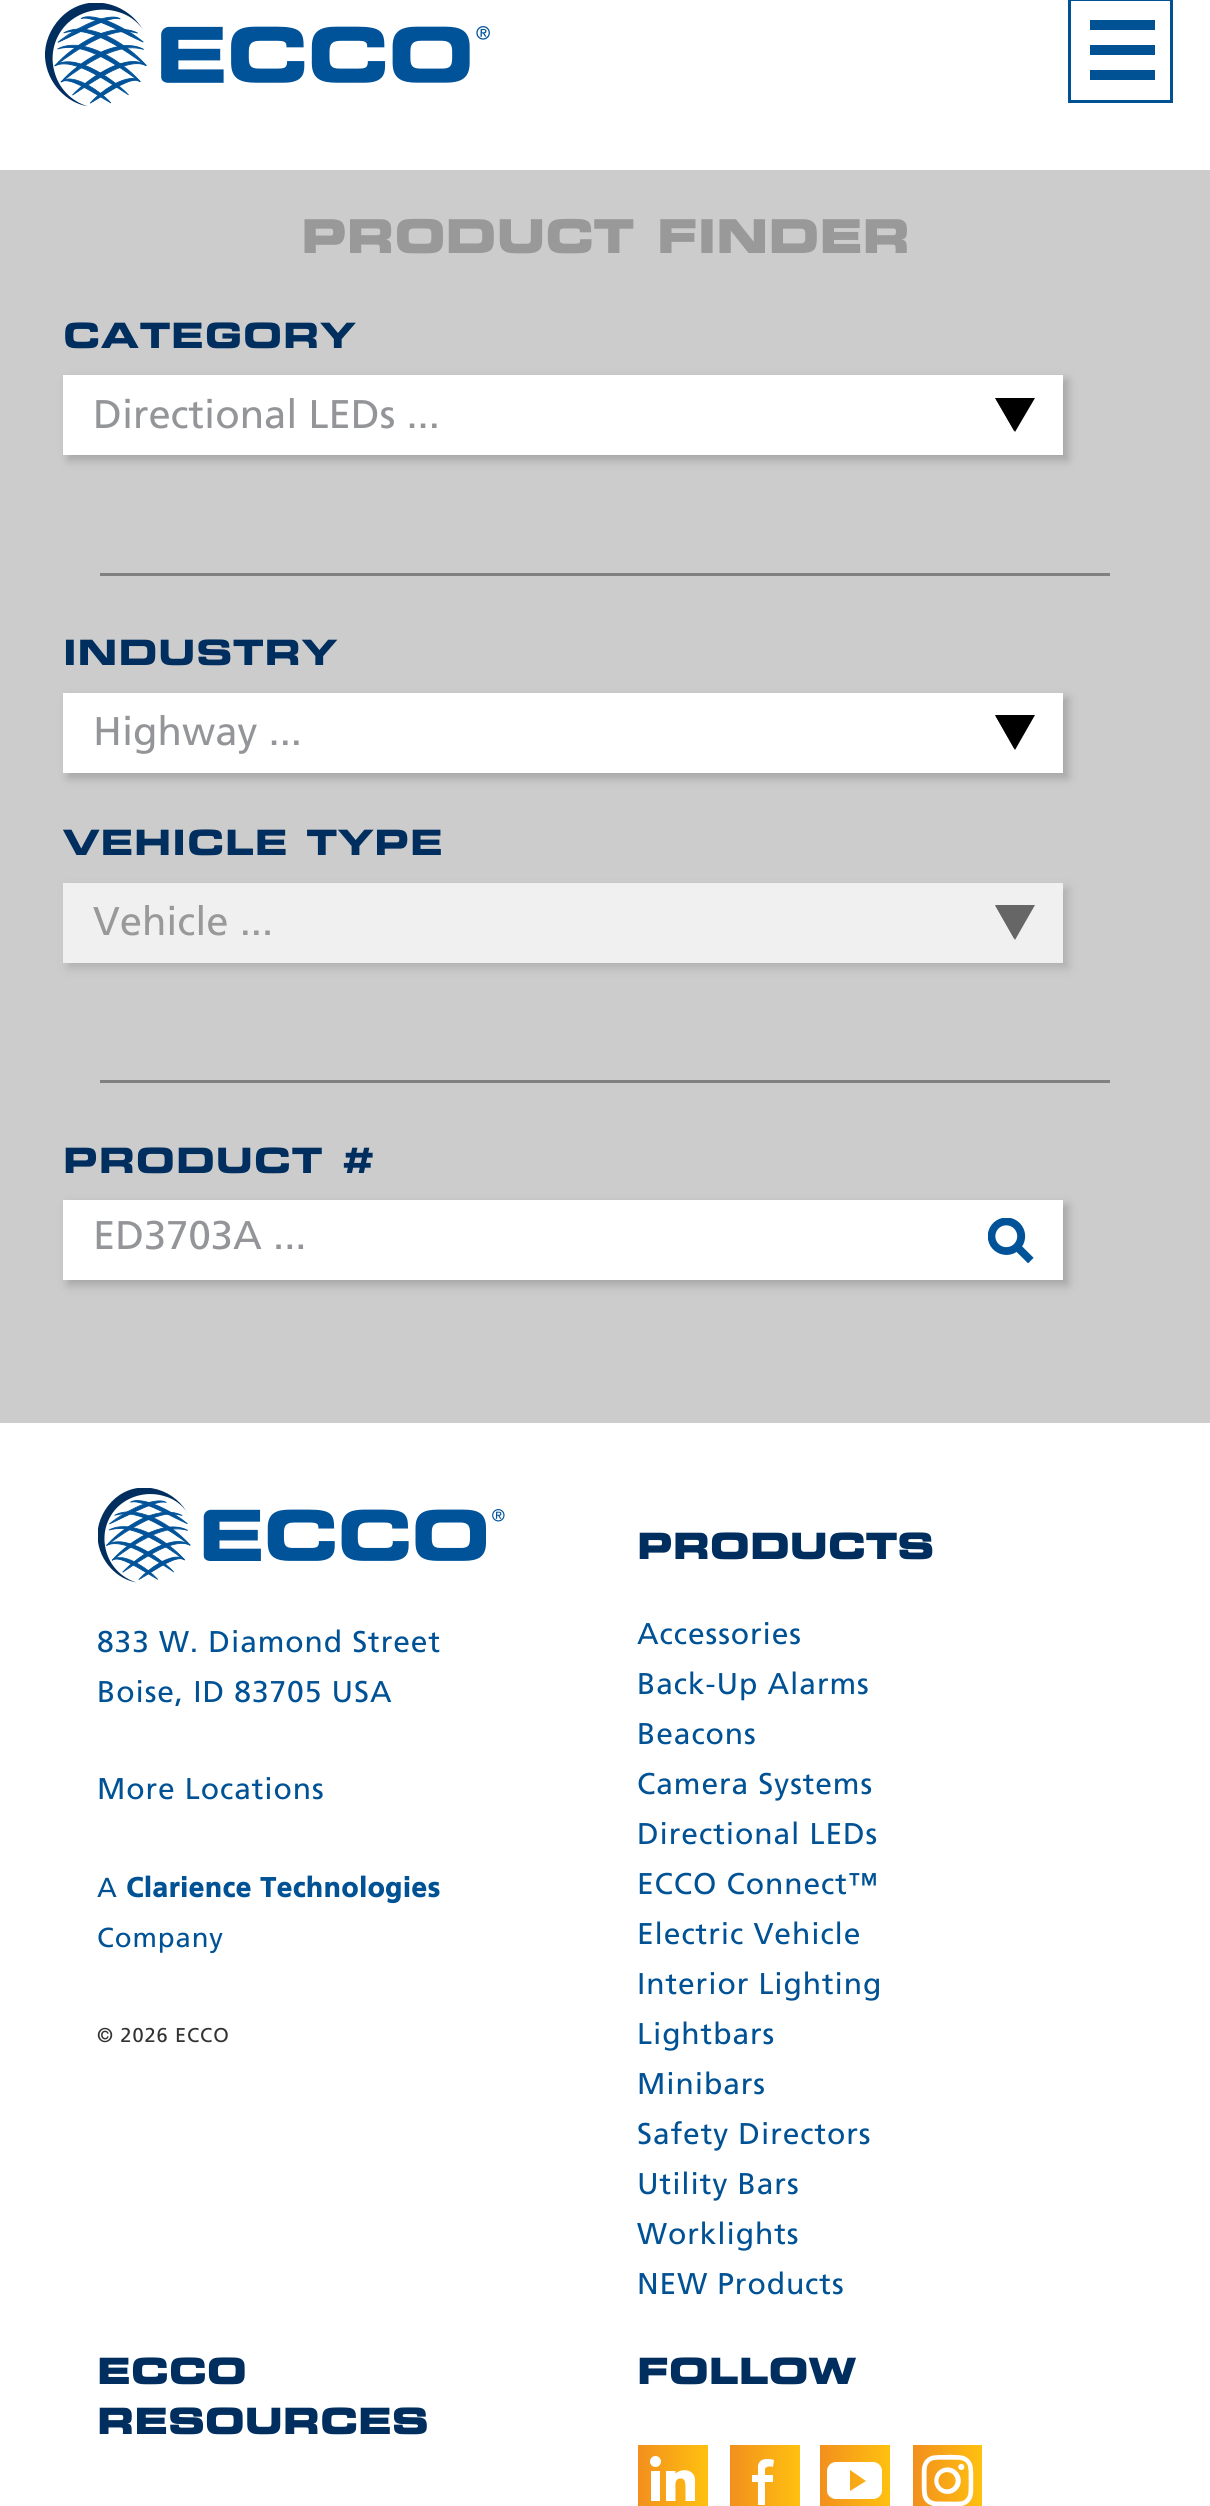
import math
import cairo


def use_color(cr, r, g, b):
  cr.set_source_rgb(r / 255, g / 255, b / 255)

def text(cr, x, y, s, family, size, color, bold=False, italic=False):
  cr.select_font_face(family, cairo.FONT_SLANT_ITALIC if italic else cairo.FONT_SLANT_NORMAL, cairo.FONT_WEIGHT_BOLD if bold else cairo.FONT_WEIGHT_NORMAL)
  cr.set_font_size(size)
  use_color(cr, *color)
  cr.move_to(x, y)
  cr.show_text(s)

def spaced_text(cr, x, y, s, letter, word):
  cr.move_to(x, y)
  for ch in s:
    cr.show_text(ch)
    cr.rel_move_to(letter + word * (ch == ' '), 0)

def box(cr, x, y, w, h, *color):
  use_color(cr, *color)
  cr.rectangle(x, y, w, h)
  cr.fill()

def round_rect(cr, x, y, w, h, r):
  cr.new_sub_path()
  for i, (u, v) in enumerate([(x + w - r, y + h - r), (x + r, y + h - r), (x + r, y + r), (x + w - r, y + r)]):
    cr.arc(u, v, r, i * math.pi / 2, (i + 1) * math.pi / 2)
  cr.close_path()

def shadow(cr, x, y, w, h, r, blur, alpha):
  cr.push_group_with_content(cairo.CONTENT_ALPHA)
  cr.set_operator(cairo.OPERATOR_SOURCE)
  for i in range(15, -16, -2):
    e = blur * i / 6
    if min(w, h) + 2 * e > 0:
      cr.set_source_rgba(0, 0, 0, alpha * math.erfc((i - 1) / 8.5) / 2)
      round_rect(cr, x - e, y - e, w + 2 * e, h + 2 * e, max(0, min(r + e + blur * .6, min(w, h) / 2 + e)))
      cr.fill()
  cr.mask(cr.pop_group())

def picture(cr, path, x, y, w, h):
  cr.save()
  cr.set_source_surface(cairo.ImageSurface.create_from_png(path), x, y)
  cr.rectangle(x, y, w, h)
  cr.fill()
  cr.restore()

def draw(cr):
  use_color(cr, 255, 255, 255)
  cr.paint()
  picture(cr, "img_01.png", 45, 3, 445, 104)
  cr.rectangle(1069.5, -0.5, 102, 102)
  use_color(cr, 0, 82, 149)
  cr.set_line_width(3)
  cr.stroke()
  box(cr, 1090, 20, 65, 10, 0, 82, 149)
  box(cr, 1090, 70, 65, 10, 0, 82, 149)
  box(cr, 1090, 45, 65, 10, 0, 82, 149)
  box(cr, 0, 170, 1210, 1253, 204, 204, 204)
  use_color(cr, 0, 0, 0)
  shadow(cr, 68, 380, 1000, 80, 0, 5, 0.2)
  box(cr, 63, 375, 1000, 80, 255, 255, 255)
  use_color(cr, 51, 51, 51)
  cr.new_path()
  cr.move_to(995.5, 398.5)
  cr.line_to(1014, 431)
  cr.line_to(1033, 398.5)
  cr.close_path()
  cr.fill()
  use_color(cr, 0, 0, 0)
  cr.new_path()
  cr.move_to(995, 398)
  cr.line_to(1035, 398)
  cr.line_to(1015, 432)
  cr.close_path()
  cr.fill()
  box(cr, 100, 573, 1010, 3, 128, 128, 128)
  use_color(cr, 0, 0, 0)
  shadow(cr, 68, 698, 1000, 80, 0, 5, 0.2)
  box(cr, 63, 693, 1000, 80, 255, 255, 255)
  use_color(cr, 51, 51, 51)
  cr.new_path()
  cr.move_to(995.5, 716)
  cr.line_to(1014, 748.5)
  cr.line_to(1033, 716)
  cr.close_path()
  cr.fill()
  use_color(cr, 0, 0, 0)
  cr.new_path()
  cr.move_to(995, 715)
  cr.line_to(1035, 715)
  cr.line_to(1015, 750)
  cr.close_path()
  cr.fill()
  use_color(cr, 61, 61, 61)
  shadow(cr, 68, 888, 1000, 80, 0, 5, 0.2)
  box(cr, 63, 883, 1000, 80, 240, 240, 240)
  use_color(cr, 97, 97, 97)
  cr.new_path()
  cr.move_to(995.5, 906)
  cr.line_to(1014, 938.5)
  cr.line_to(1033, 906)
  cr.close_path()
  cr.fill()
  use_color(cr, 102, 102, 102)
  cr.new_path()
  cr.move_to(995, 905)
  cr.line_to(1035, 905)
  cr.line_to(1015, 940)
  cr.close_path()
  cr.fill()
  box(cr, 100, 1080, 1010, 3, 128, 128, 128)
  use_color(cr, 0, 0, 0)
  shadow(cr, 68, 1205, 1000, 80, 0, 5, 0.2)
  box(cr, 63, 1200, 1000, 80, 255, 255, 255)
  picture(cr, "img_02.png", 988, 1218, 46, 45)
  picture(cr, "img_03.png", 98, 1488, 407, 95)
  gradient = cairo.LinearGradient(638, 2480, 708, 2480)
  gradient.add_color_stop_rgba(0, 0.949, 0.561, 0.114, 1)
  gradient.add_color_stop_rgba(1, 1, 0.757, 0.063, 1)
  cr.set_source(gradient)
  cr.rectangle(638, 2445, 70, 61)
  cr.fill()
  box(cr, 651, 2471, 9, 30, 255, 255, 255)
  cr.new_path()
  cr.move_to(695, 2486.5)
  cr.curve_to(695, 2483, 695.5, 2478.5, 694, 2475.5)
  cr.curve_to(690.5, 2468.5, 680.5, 2469, 675.5, 2473.5)
  cr.line_to(675.5, 2471)
  cr.line_to(666, 2471)
  cr.line_to(666, 2501)
  cr.line_to(675.5, 2501)
  cr.line_to(675.5, 2489)
  cr.curve_to(675.5, 2485, 674.5, 2479, 680, 2478.5)
  cr.curve_to(685, 2478, 685, 2482, 685.5, 2485.5)
  cr.line_to(685.5, 2501)
  cr.line_to(695, 2501)
  cr.close_path()
  cr.fill()
  cr.arc(655.5, 2461.5, 5.5, 0, 2 * math.pi)
  cr.fill()
  gradient = cairo.LinearGradient(730, 2480, 800, 2480)
  gradient.add_color_stop_rgba(0, 0.949, 0.561, 0.114, 1)
  gradient.add_color_stop_rgba(1, 1, 0.757, 0.063, 1)
  cr.set_source(gradient)
  cr.rectangle(730, 2445, 70, 61)
  cr.fill()
  use_color(cr, 255, 255, 255)
  cr.new_path()
  cr.move_to(773, 2475)
  cr.line_to(773, 2482)
  cr.line_to(765, 2482)
  cr.line_to(765, 2505)
  cr.line_to(758, 2505)
  cr.line_to(758, 2482)
  cr.line_to(752, 2482)
  cr.line_to(752, 2475)
  cr.line_to(758, 2475)
  cr.line_to(758, 2466)
  cr.curve_to(759, 2458, 768, 2458, 774, 2460)
  cr.line_to(773, 2467)
  cr.curve_to(771, 2466, 766, 2466, 765, 2469)
  cr.line_to(765, 2475)
  cr.close_path()
  cr.fill()
  gradient = cairo.LinearGradient(820, 2480, 890, 2480)
  gradient.add_color_stop_rgba(0, 0.949, 0.561, 0.114, 1)
  gradient.add_color_stop_rgba(1, 1, 0.757, 0.063, 1)
  cr.set_source(gradient)
  cr.rectangle(820, 2445, 70, 61)
  cr.fill()
  use_color(cr, 255, 255, 255)
  cr.new_path()
  cr.move_to(873, 2462)
  cr.line_to(836, 2462)
  cr.curve_to(831, 2462, 827, 2466, 827, 2471)
  cr.line_to(827, 2491)
  cr.curve_to(827, 2495, 831, 2499, 836, 2499)
  cr.line_to(873, 2499)
  cr.curve_to(878, 2499, 882, 2495, 882, 2491)
  cr.line_to(882, 2471)
  cr.curve_to(882, 2466, 878, 2462, 873, 2462)
  cr.close_path()
  cr.move_to(850, 2491)
  cr.line_to(850, 2470)
  cr.line_to(866, 2481)
  cr.close_path()
  cr.fill()
  picture(cr, "img_04.png", 913, 2445, 69, 61)
  cr.select_font_face("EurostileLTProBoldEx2", cairo.FONT_SLANT_NORMAL, cairo.FONT_WEIGHT_BOLD)
  cr.set_font_size(45)
  use_color(cr, 153, 153, 153)
  spaced_text(cr, 301, 253, "PRODUCT FINDER", 0.9, 0)
  cr.select_font_face("EurostileLTProBoldEx2")
  cr.set_font_size(35)
  use_color(cr, 0, 46, 94)
  spaced_text(cr, 63, 348, "CATEGORY", 0.9, 0)
  text(cr, 93, 428, "Directional LEDs ...", "Frutiger", 40, (147, 149, 152))
  cr.select_font_face("EurostileLTProBoldEx2")
  cr.set_font_size(35)
  use_color(cr, 0, 46, 94)
  spaced_text(cr, 63, 665, "INDUSTRY", 0.9, 0)
  text(cr, 93, 745, "Highway ...", "Frutiger", 40, (147, 149, 152))
  cr.select_font_face("EurostileLTProBoldEx2")
  cr.set_font_size(35)
  use_color(cr, 0, 46, 94)
  spaced_text(cr, 63, 855, "VEHICLE TYPE", 0.9, 0)
  text(cr, 93, 935, "Vehicle ...", "Frutiger", 40, (153, 153, 153))
  cr.select_font_face("EurostileLTProBoldEx2")
  cr.set_font_size(35)
  use_color(cr, 0, 46, 94)
  spaced_text(cr, 63, 1173, "PRODUCT #", 0.9, 0)
  text(cr, 93, 1249, "ED3703A ...", "Frutiger", 40, (147, 149, 152))
  cr.set_font_size(30)
  use_color(cr, 0, 82, 149)
  spaced_text(cr, 97, 1652, "833 W. Diamond Street", 0.9, 0)
  spaced_text(cr, 97, 1702, "Boise, ID 83705 USA", 0.9, 0)
  spaced_text(cr, 97, 1799, "More Locations", 0.9, 0)
  cr.set_font_size(27.5)
  spaced_text(cr, 97, 1897, "A", 0.9, 0)
  cr.select_font_face("Frutiger", cairo.FONT_SLANT_NORMAL, cairo.FONT_WEIGHT_BOLD)
  spaced_text(cr, 126, 1897, "Clarience Technologies", 0.9, 0)
  cr.select_font_face("Frutiger")
  spaced_text(cr, 97, 1947, "Company", 0.9, 0)
  cr.set_font_size(20)
  use_color(cr, 51, 51, 51)
  spaced_text(cr, 97, 2042, "© 2026 ECCO", 0.9, 0)
  cr.select_font_face("EurostileLTProBoldEx2", cairo.FONT_SLANT_NORMAL, cairo.FONT_WEIGHT_BOLD)
  cr.set_font_size(35)
  use_color(cr, 0, 46, 94)
  spaced_text(cr, 637, 1559, "PRODUCTS", 0.9, 0)
  cr.select_font_face("Frutiger")
  cr.set_font_size(30)
  use_color(cr, 0, 82, 149)
  spaced_text(cr, 637, 1644, "Accessories", 0.9, 0)
  spaced_text(cr, 637, 1694, "Back-Up Alarms", 0.9, 0)
  spaced_text(cr, 637, 1744, "Beacons", 0.9, 0)
  spaced_text(cr, 637, 1794, "Camera Systems", 0.9, 0)
  spaced_text(cr, 637, 1844, "Directional LEDs", 0.9, 0)
  spaced_text(cr, 637, 1894, "ECCO Connect™", 0.9, 0)
  spaced_text(cr, 637, 1944, "Electric Vehicle", 0.9, 0)
  spaced_text(cr, 637, 1994, "Interior Lighting", 0.9, 0)
  spaced_text(cr, 637, 2044, "Lightbars", 0.9, 0)
  spaced_text(cr, 637, 2094, "Minibars", 0.9, 0)
  spaced_text(cr, 637, 2144, "Safety Directors", 0.9, 0)
  spaced_text(cr, 637, 2194, "Utility Bars", 0.9, 0)
  spaced_text(cr, 637, 2244, "Worklights", 0.9, 0)
  spaced_text(cr, 637, 2294, "NEW Products", 0.9, 0)
  cr.select_font_face("EurostileLTProBoldEx2", cairo.FONT_SLANT_NORMAL, cairo.FONT_WEIGHT_BOLD)
  cr.set_font_size(35)
  use_color(cr, 0, 46, 94)
  spaced_text(cr, 97, 2384, "ECCO", 0.9, 0)
  spaced_text(cr, 97, 2434, "RESOURCES", 0.9, 0)
  spaced_text(cr, 637, 2384, "FOLLOW", 0.9, 0)


surface = cairo.ImageSurface(cairo.FORMAT_RGB24, 1210, 2506)
cr = cairo.Context(surface)
options = cairo.FontOptions()
options.set_hint_metrics(cairo.HINT_METRICS_OFF)
options.set_hint_style(cairo.HINT_STYLE_NONE)
cr.set_font_options(options)
cr.set_miter_limit(4)
draw(cr)
surface.write_to_png("out.png")
